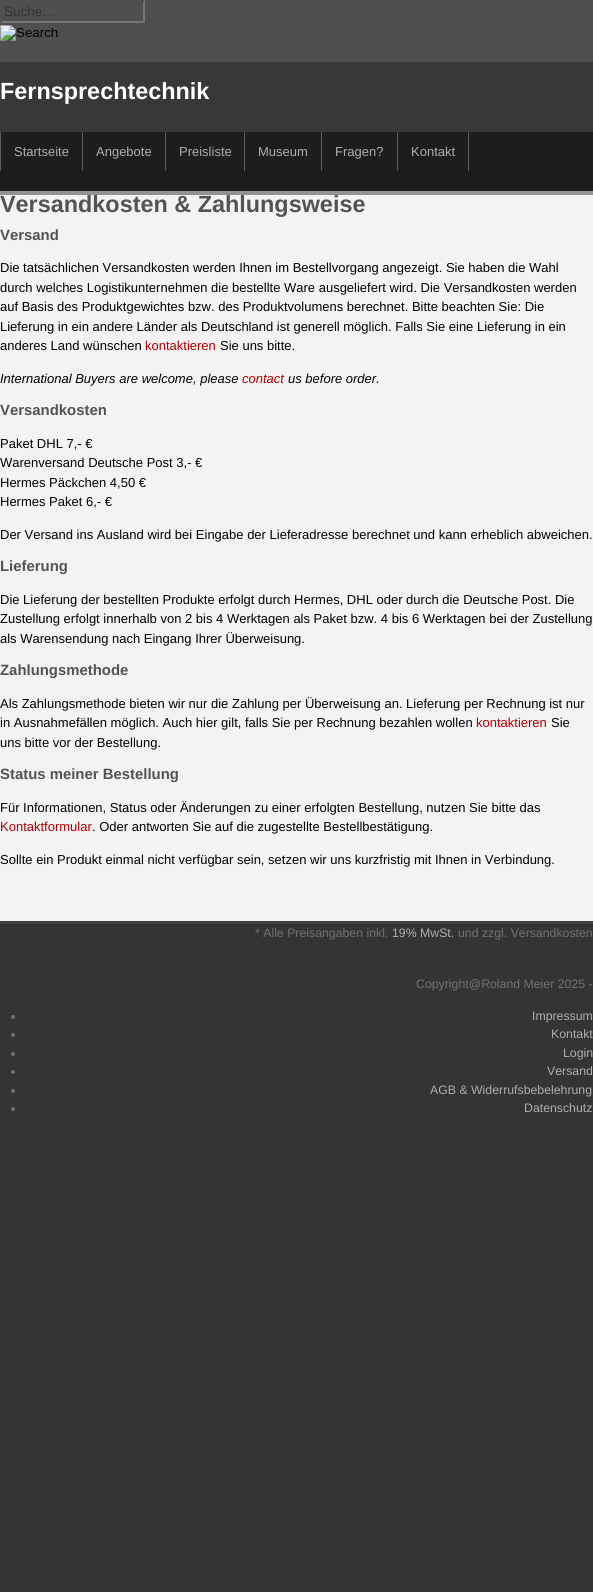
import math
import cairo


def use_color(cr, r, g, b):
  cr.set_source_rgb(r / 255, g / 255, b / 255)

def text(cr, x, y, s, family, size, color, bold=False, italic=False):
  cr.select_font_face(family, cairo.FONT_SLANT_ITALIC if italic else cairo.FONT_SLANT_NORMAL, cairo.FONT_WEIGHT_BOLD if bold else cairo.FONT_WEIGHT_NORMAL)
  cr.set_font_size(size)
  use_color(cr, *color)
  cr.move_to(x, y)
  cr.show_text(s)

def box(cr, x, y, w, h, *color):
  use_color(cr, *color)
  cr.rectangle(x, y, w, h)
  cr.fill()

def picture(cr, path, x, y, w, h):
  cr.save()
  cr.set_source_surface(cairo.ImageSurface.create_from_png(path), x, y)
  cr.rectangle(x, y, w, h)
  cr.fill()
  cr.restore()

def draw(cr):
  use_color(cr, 52, 52, 52)
  cr.paint()
  box(cr, 0, 195, 593, 726, 243, 243, 243)
  box(cr, 0, 0, 593, 62, 79, 79, 79)
  use_color(cr, 118, 118, 118)
  cr.new_path()
  cr.move_to(145, 0)
  cr.line_to(145, 23)
  cr.line_to(143, 21)
  cr.line_to(143, 2)
  cr.close_path()
  cr.fill()
  cr.new_path()
  cr.move_to(145, 23)
  cr.line_to(0, 23)
  cr.line_to(2, 21)
  cr.line_to(143, 21)
  cr.close_path()
  cr.fill()
  use_color(cr, 79, 79, 79)
  cr.new_path()
  cr.move_to(0, 23)
  cr.line_to(0, 0)
  cr.line_to(2, 2)
  cr.line_to(2, 21)
  cr.close_path()
  cr.fill()
  picture(cr, "img_01.png", 0, 25, 58, 16)
  box(cr, 0, 62, 593, 70, 56, 56, 56)
  box(cr, 0, 132, 593, 59, 29, 29, 29)
  box(cr, 0, 191, 593, 4, 146, 146, 146)
  box(cr, 0, 132, 1, 39, 91, 91, 91)
  box(cr, 82, 132, 1, 39, 91, 91, 91)
  box(cr, 165, 132, 1, 39, 91, 91, 91)
  box(cr, 244, 132, 1, 39, 91, 91, 91)
  box(cr, 321, 132, 1, 39, 91, 91, 91)
  box(cr, 468, 132, 1, 39, 91, 91, 91)
  box(cr, 397, 132, 1, 39, 91, 91, 91)
  box(cr, 0, 921, 593, 3, 64, 64, 64)
  use_color(cr, 114, 113, 113)
  cr.arc(13, 1017, 2, 0, 2 * math.pi)
  cr.fill()
  cr.arc(13, 1035, 2, 0, 2 * math.pi)
  cr.fill()
  cr.arc(13, 1054, 2, 0, 2 * math.pi)
  cr.fill()
  cr.arc(13, 1072, 2, 0, 2 * math.pi)
  cr.fill()
  cr.arc(13, 1091, 2, 0, 2 * math.pi)
  cr.fill()
  cr.arc(13, 1109, 2, 0, 2 * math.pi)
  cr.fill()
  text(cr, 4, 16, "Suche...", "Liberation Sans", 13.5, (51, 51, 51))
  text(cr, 0, 99, "Fernsprechtechnik", "Liberation Sans", 23.4, (255, 255, 255), bold=True)
  text(cr, 14, 156, "Startseite", "Liberation Sans", 13, (174, 174, 174))
  text(cr, 96, 156, "Angebote", "Liberation Sans", 13, (174, 174, 174))
  text(cr, 179, 156, "Preisliste", "Liberation Sans", 13, (174, 174, 174))
  text(cr, 258, 156, "Museum", "Liberation Sans", 13, (174, 174, 174))
  text(cr, 335, 156, "Fragen?", "Liberation Sans", 13, (174, 174, 174))
  text(cr, 411, 156, "Kontakt", "Liberation Sans", 13, (174, 174, 174))
  text(cr, 0, 212, "Versandkosten & Zahlungsweise", "Liberation Sans", 23.4, (83, 83, 83), bold=True)
  text(cr, 0, 240, "Versand", "Liberation Sans", 14.9, (83, 83, 83), bold=True)
  text(cr, 0, 272, "Die tatsächlichen Versandkosten werden Ihnen im Bestellvorgang angezeigt. Sie haben die Wahl", "Liberation Sans", 13, (0, 0, 0))
  text(cr, 0, 292, "durch welches Logistikunternehmen die bestellte Ware ausgeliefert wird. Die Versandkosten werden", "Liberation Sans", 13, (0, 0, 0))
  text(cr, 0, 311, "auf Basis des Produktgewichtes bzw. des Produktvolumens berechnet. Bitte beachten Sie: Die", "Liberation Sans", 13, (0, 0, 0))
  text(cr, 0, 331, "Lieferung in ein andere Länder als Deutschland ist generell möglich. Falls Sie eine Lieferung in ein", "Liberation Sans", 13, (0, 0, 0))
  text(cr, 0, 350, "anderes Land wünschen", "Liberation Sans", 13, (0, 0, 0))
  text(cr, 145, 350, "kontaktieren", "Liberation Sans", 13, (175, 0, 0))
  text(cr, 220, 350, "Sie uns bitte.", "Liberation Sans", 13, (0, 0, 0))
  text(cr, 0, 383, "International Buyers are welcome, please", "Liberation Sans", 13, (0, 0, 0), italic=True)
  text(cr, 242, 383, "contact", "Liberation Sans", 13, (175, 0, 0), italic=True)
  text(cr, 288, 383, "us before order.", "Liberation Sans", 13, (0, 0, 0), italic=True)
  text(cr, 0, 415, "Versandkosten", "Liberation Sans", 14.9, (83, 83, 83), bold=True)
  text(cr, 0, 448, "Paket DHL 7,- €", "Liberation Sans", 13, (0, 0, 0))
  text(cr, 0, 467, "Warenversand Deutsche Post 3,- €", "Liberation Sans", 13, (0, 0, 0))
  text(cr, 0, 487, "Hermes Päckchen 4,50 €", "Liberation Sans", 13, (0, 0, 0))
  text(cr, 0, 506, "Hermes Paket 6,- €", "Liberation Sans", 13, (0, 0, 0))
  text(cr, 0, 539, "Der Versand ins Ausland wird bei Eingabe der Lieferadresse berechnet und kann erheblich abweichen.", "Liberation Sans", 13, (0, 0, 0))
  text(cr, 0, 571, "Lieferung", "Liberation Sans", 14.9, (83, 83, 83), bold=True)
  text(cr, 0, 604, "Die Lieferung der bestellten Produkte erfolgt durch Hermes, DHL oder durch die Deutsche Post. Die", "Liberation Sans", 13, (0, 0, 0))
  text(cr, 0, 623, "Zustellung erfolgt innerhalb von 2 bis 4 Werktagen als Paket bzw. 4 bis 6 Werktagen bei der Zustellung", "Liberation Sans", 13, (0, 0, 0))
  text(cr, 0, 643, "als Warensendung nach Eingang Ihrer Überweisung.", "Liberation Sans", 13, (0, 0, 0))
  text(cr, 0, 675, "Zahlungsmethode", "Liberation Sans", 14.9, (83, 83, 83), bold=True)
  text(cr, 0, 708, "Als Zahlungsmethode bieten wir nur die Zahlung per Überweisung an. Lieferung per Rechnung ist nur", "Liberation Sans", 13, (0, 0, 0))
  text(cr, 0, 727, "in Ausnahmefällen möglich. Auch hier gilt, falls Sie per Rechnung bezahlen wollen", "Liberation Sans", 13, (0, 0, 0))
  text(cr, 476, 727, "kontaktieren", "Liberation Sans", 13, (175, 0, 0))
  text(cr, 551, 727, "Sie", "Liberation Sans", 13, (0, 0, 0))
  text(cr, 0, 747, "uns bitte vor der Bestellung.", "Liberation Sans", 13, (0, 0, 0))
  text(cr, 0, 779, "Status meiner Bestellung", "Liberation Sans", 14.9, (83, 83, 83), bold=True)
  text(cr, 0, 812, "Für Informationen, Status oder Änderungen zu einer erfolgten Bestellung, nutzen Sie bitte das", "Liberation Sans", 13, (0, 0, 0))
  text(cr, 0, 831, "Kontaktformular", "Liberation Sans", 13, (175, 0, 0))
  text(cr, 92, 831, ". Oder antworten Sie auf die zugestellte Bestellbestätigung.", "Liberation Sans", 13, (0, 0, 0))
  text(cr, 0, 864, "Sollte ein Produkt einmal nicht verfügbar sein, setzen wir uns kurzfristig mit Ihnen in Verbindung.", "Liberation Sans", 13, (0, 0, 0))
  text(cr, 255, 937, "* Alle Preisangaben inkl.", "Liberation Sans", 12.3, (114, 113, 113))
  text(cr, 392, 937, "19% MwSt.", "Liberation Sans", 12.3, (174, 174, 174))
  text(cr, 458, 937, "und zzgl. Versandkosten", "Liberation Sans", 12.3, (114, 113, 113))
  text(cr, 416, 988, "Copyright@Roland Meier 2025 -", "Liberation Sans", 12.3, (114, 113, 113))
  text(cr, 532, 1020, "Impressum", "Liberation Sans", 12.3, (174, 174, 174))
  text(cr, 551, 1038, "Kontakt", "Liberation Sans", 12.3, (174, 174, 174))
  text(cr, 563, 1057, "Login", "Liberation Sans", 12.3, (174, 174, 174))
  text(cr, 547, 1075, "Versand", "Liberation Sans", 12.3, (174, 174, 174))
  text(cr, 430, 1094, "AGB & Widerrufsbebelehrung", "Liberation Sans", 12.3, (174, 174, 174))
  text(cr, 524, 1112, "Datenschutz", "Liberation Sans", 12.3, (174, 174, 174))


surface = cairo.ImageSurface(cairo.FORMAT_RGB24, 593, 1592)
cr = cairo.Context(surface)
options = cairo.FontOptions()
options.set_hint_metrics(cairo.HINT_METRICS_OFF)
options.set_hint_style(cairo.HINT_STYLE_NONE)
cr.set_font_options(options)
cr.set_miter_limit(4)
draw(cr)
surface.write_to_png("out.png")
